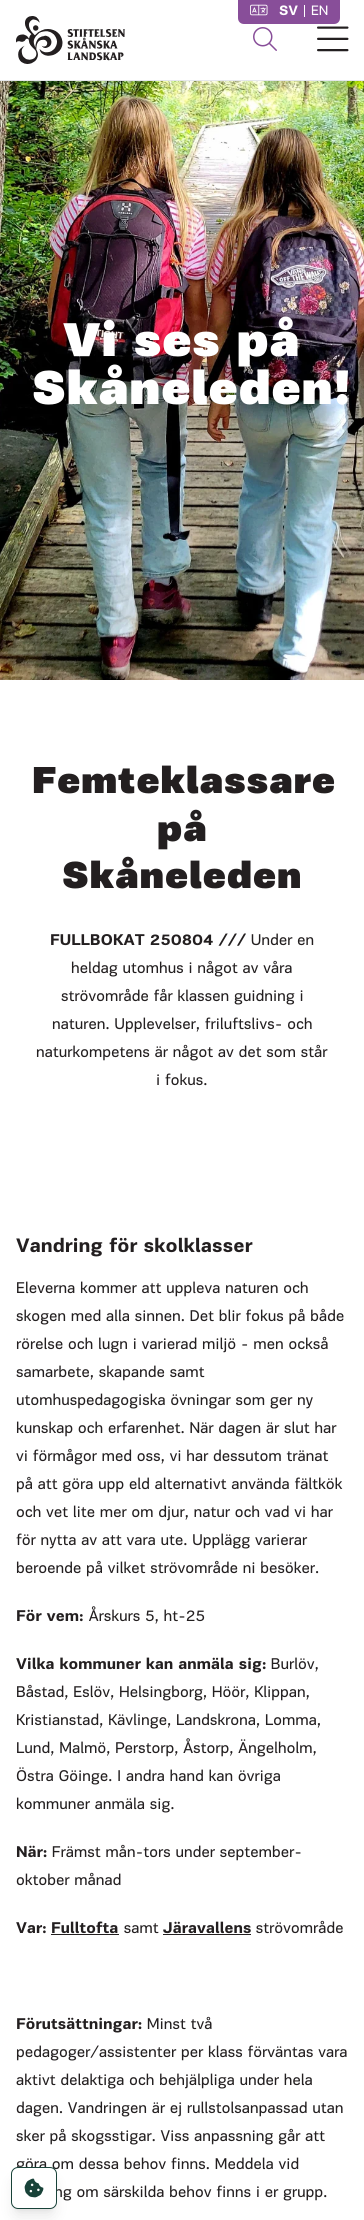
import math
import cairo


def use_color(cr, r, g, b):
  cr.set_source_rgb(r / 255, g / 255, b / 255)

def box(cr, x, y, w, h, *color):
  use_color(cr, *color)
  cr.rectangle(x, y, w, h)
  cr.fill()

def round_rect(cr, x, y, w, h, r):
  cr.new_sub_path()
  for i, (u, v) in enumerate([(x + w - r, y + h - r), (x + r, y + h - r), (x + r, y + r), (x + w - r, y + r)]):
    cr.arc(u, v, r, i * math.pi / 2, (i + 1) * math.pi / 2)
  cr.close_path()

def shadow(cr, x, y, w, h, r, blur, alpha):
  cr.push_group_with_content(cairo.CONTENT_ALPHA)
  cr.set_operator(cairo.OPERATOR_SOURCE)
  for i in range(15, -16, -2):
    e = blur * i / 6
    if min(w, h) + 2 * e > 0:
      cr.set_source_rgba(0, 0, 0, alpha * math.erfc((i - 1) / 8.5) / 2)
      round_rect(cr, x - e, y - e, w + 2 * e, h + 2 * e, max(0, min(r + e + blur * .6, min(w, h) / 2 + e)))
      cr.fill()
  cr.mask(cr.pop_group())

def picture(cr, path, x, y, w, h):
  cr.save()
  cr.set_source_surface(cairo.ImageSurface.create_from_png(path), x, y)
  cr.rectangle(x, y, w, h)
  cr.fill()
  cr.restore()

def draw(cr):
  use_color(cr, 255, 255, 255)
  cr.paint()
  box(cr, 0, 80, 364, 1, 229, 231, 235)
  use_color(cr, 136, 78, 153)
  cr.new_path()
  cr.move_to(238, 0)
  cr.line_to(340, 0)
  cr.line_to(340, 18)
  cr.curve_to(340, 21.5, 337.5, 24, 334, 24)
  cr.line_to(244, 24)
  cr.curve_to(240.5, 24, 238, 21.5, 238, 18)
  cr.close_path()
  cr.fill()
  picture(cr, "img_01.png", 250, 4, 18, 12)
  picture(cr, "img_02.png", 279, 5, 19, 11)
  box(cr, 304, 5, 1, 12, 255, 255, 255)
  picture(cr, "img_03.png", 311, 5, 17, 10)
  picture(cr, "img_04.png", 16, 16, 109, 48)
  picture(cr, "img_05.png", 253, 27, 24, 24)
  picture(cr, "img_06.png", 317, 26, 32, 26)
  picture(cr, "img_07.png", 0, 81, 364, 599)
  picture(cr, "img_08.png", 63, 316, 235, 51)
  picture(cr, "img_09.png", 33, 364, 315, 41)
  picture(cr, "img_10.png", 33, 765, 302, 29)
  picture(cr, "img_11.png", 158, 809, 48, 41)
  picture(cr, "img_12.png", 63, 856, 237, 33)
  picture(cr, "img_13.png", 51, 933, 195, 13)
  picture(cr, "img_14.png", 251, 933, 63, 13)
  picture(cr, "img_15.png", 71, 960, 221, 17)
  picture(cr, "img_16.png", 61, 988, 242, 17)
  picture(cr, "img_17.png", 52, 1017, 260, 16)
  picture(cr, "img_18.png", 36, 1044, 292, 17)
  picture(cr, "img_19.png", 157, 1073, 50, 13)
  picture(cr, "img_20.png", 16, 1237, 237, 20)
  picture(cr, "img_21.png", 17, 1281, 291, 16)
  picture(cr, "img_22.png", 16, 1308, 328, 17)
  picture(cr, "img_23.png", 16, 1336, 312, 17)
  picture(cr, "img_24.png", 16, 1365, 189, 16)
  picture(cr, "img_25.png", 16, 1393, 297, 16)
  picture(cr, "img_26.png", 16, 1421, 321, 16)
  picture(cr, "img_27.png", 16, 1448, 313, 17)
  picture(cr, "img_28.png", 16, 1476, 327, 17)
  picture(cr, "img_29.png", 16, 1505, 317, 16)
  picture(cr, "img_30.png", 16, 1533, 292, 16)
  picture(cr, "img_31.png", 16, 1560, 303, 17)
  picture(cr, "img_32.png", 17, 1609, 66, 13)
  picture(cr, "img_33.png", 89, 1606, 116, 18)
  picture(cr, "img_34.png", 16, 1657, 250, 16)
  picture(cr, "img_35.png", 271, 1657, 47, 15)
  picture(cr, "img_36.png", 17, 1684, 292, 17)
  picture(cr, "img_37.png", 17, 1713, 303, 16)
  picture(cr, "img_38.png", 17, 1738, 299, 19)
  picture(cr, "img_39.png", 16, 1767, 264, 18)
  picture(cr, "img_40.png", 16, 1797, 158, 16)
  picture(cr, "img_41.png", 16, 1845, 31, 13)
  picture(cr, "img_42.png", 52, 1844, 249, 17)
  picture(cr, "img_43.png", 16, 1872, 105, 14)
  picture(cr, "img_44.png", 16, 1922, 30, 12)
  picture(cr, "img_45.png", 52, 1921, 66, 13)
  picture(cr, "img_46.png", 124, 1923, 35, 11)
  picture(cr, "img_47.png", 163, 1921, 88, 13)
  picture(cr, "img_48.png", 256, 1920, 87, 14)
  box(cr, 51, 1934, 68, 1, 35, 31, 32)
  box(cr, 163, 1934, 88, 1, 35, 31, 32)
  picture(cr, "img_49.png", 17, 2017, 125, 16)
  picture(cr, "img_50.png", 147, 2016, 65, 14)
  picture(cr, "img_51.png", 16, 2045, 331, 16)
  picture(cr, "img_52.png", 16, 2073, 296, 16)
  picture(cr, "img_53.png", 16, 2101, 327, 16)
  picture(cr, "img_54.png", 16, 2128, 309, 17)
  picture(cr, "img_55.png", 16, 2157, 283, 13)
  picture(cr, "img_56.png", 57, 2185, 270, 16)
  use_color(cr, 0, 0, 0)
  shadow(cr, 16, 2176, 36, 32, 2, 3, 0.1)
  shadow(cr, 15, 2181, 38, 34, 3, 7.5, 0.1)
  use_color(cr, 255, 255, 255)
  round_rect(cr, 11.5, 2167.5, 45, 41, 6.5)
  cr.fill_preserve()
  use_color(cr, 25, 67, 57)
  cr.set_line_width(1)
  cr.stroke()
  picture(cr, "img_57.png", 24, 2178, 20, 20)


surface = cairo.ImageSurface(cairo.FORMAT_RGB24, 364, 2220)
cr = cairo.Context(surface)
options = cairo.FontOptions()
options.set_hint_metrics(cairo.HINT_METRICS_OFF)
options.set_hint_style(cairo.HINT_STYLE_NONE)
cr.set_font_options(options)
cr.set_miter_limit(4)
draw(cr)
surface.write_to_png("out.png")
